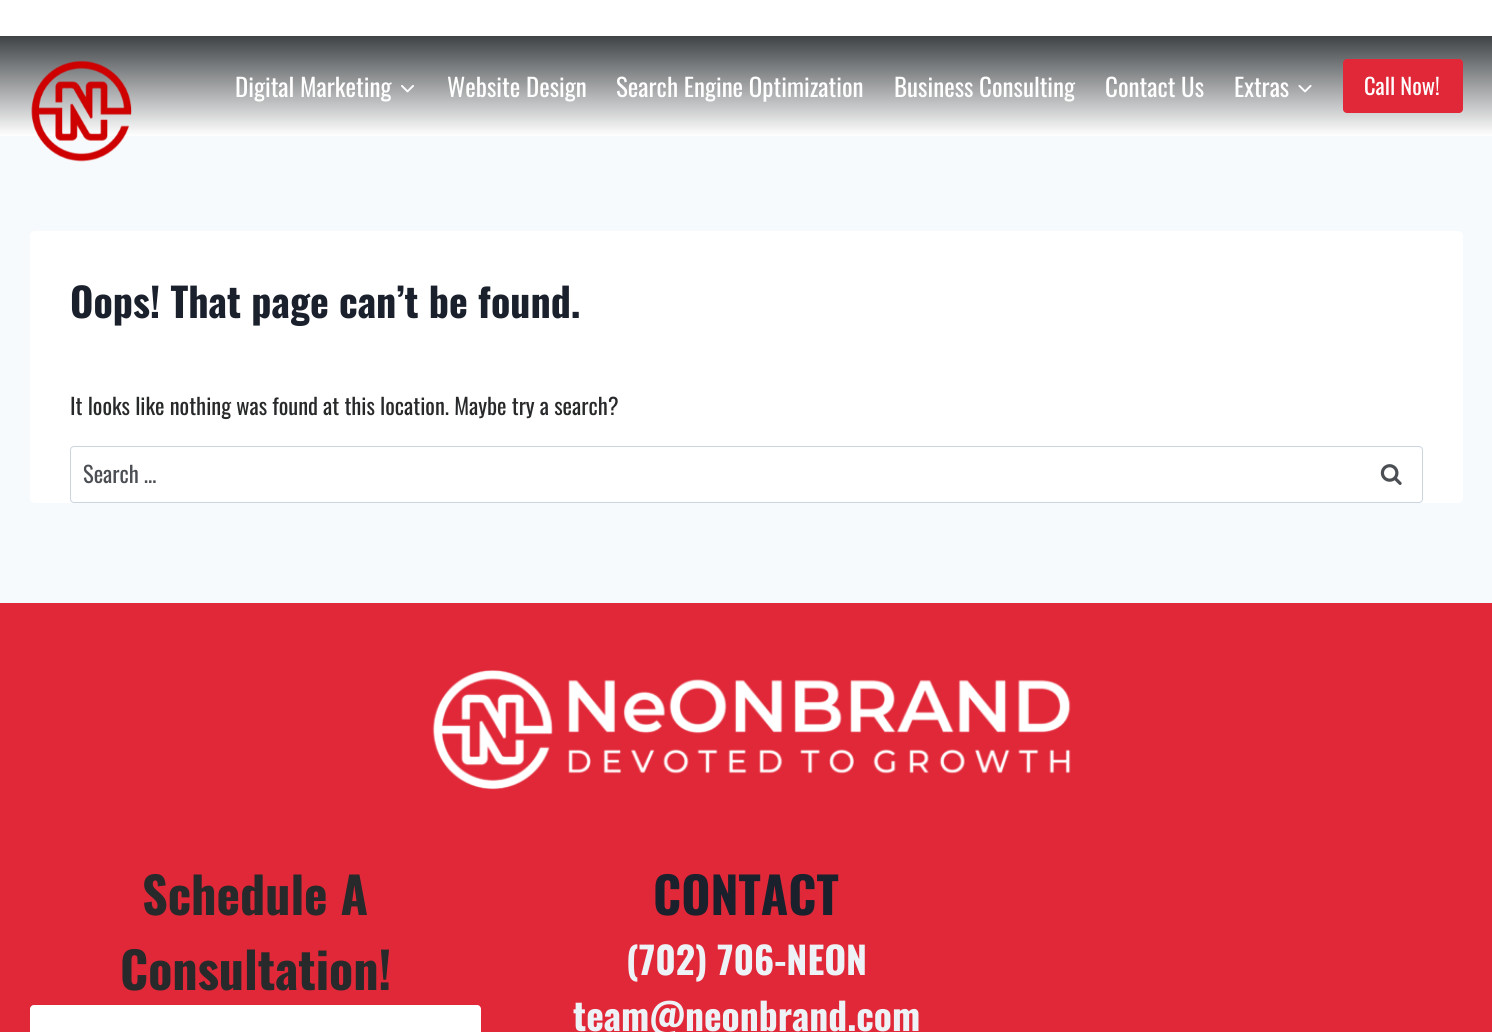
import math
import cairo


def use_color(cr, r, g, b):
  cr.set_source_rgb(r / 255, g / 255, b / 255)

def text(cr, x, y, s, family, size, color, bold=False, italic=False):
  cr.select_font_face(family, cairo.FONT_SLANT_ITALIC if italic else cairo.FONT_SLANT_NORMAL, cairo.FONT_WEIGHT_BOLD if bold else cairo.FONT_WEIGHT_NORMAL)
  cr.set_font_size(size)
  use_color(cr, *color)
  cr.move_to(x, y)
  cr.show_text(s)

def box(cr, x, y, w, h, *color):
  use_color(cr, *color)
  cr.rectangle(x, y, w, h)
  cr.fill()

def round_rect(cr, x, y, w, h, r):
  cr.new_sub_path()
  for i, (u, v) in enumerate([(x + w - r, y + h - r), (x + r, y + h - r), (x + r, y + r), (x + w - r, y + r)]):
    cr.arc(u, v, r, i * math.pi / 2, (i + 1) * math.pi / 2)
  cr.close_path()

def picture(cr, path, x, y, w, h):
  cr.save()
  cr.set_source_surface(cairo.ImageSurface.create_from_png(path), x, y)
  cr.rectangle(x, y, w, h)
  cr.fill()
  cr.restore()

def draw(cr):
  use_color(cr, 247, 250, 252)
  cr.paint()
  box(cr, 0, 0, 1492, 36, 255, 255, 255)
  gradient = cairo.LinearGradient(746, 36, 746, 136)
  gradient.add_color_stop_rgba(0, 0.247, 0.263, 0.275, 1)
  gradient.add_color_stop_rgba(1, 1, 1, 1, 1)
  cr.set_source(gradient)
  cr.rectangle(0, 36, 1492, 100)
  cr.fill()
  picture(cr, "img_01.png", 31, 60, 101, 102)
  picture(cr, "img_02.png", 401, 85, 13, 8)
  picture(cr, "img_03.png", 1298, 85, 14, 8)
  use_color(cr, 225, 40, 56)
  round_rect(cr, 1343, 59, 120, 54, 4)
  cr.fill()
  use_color(cr, 255, 255, 255)
  round_rect(cr, 30, 231, 1433, 272, 5)
  cr.fill()
  round_rect(cr, 70.5, 446.5, 1352, 56, 3.5)
  use_color(cr, 203, 213, 224)
  cr.set_line_width(1)
  cr.stroke()
  picture(cr, "img_04.png", 1380, 464, 22, 21)
  box(cr, 0, 603, 1492, 429, 225, 40, 56)
  picture(cr, "img_05.png", 432, 670, 639, 120)
  use_color(cr, 255, 255, 255)
  round_rect(cr, 30, 1005, 451, 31, 4)
  cr.fill()
  text(cr, 235, 97, "Digital Marketing", "Oswald", 25, (255, 255, 255))
  text(cr, 447, 97, "Website Design", "Oswald", 25, (255, 255, 255))
  text(cr, 616, 97, "Search Engine Optimization", "Oswald", 25, (255, 255, 255))
  text(cr, 894, 97, "Business Consulting", "Oswald", 25, (255, 255, 255))
  text(cr, 1105, 97, "Contact Us", "Oswald", 25, (255, 255, 255))
  text(cr, 1234, 97, "Extras", "Oswald", 25, (255, 255, 255))
  text(cr, 1364, 95, "Call Now!", "Oswald", 22.5, (255, 255, 255))
  text(cr, 70, 318, "Oops! That page can’t be found.", "Oswald", 40, (26, 32, 44), bold=True)
  text(cr, 70, 415, "It looks like nothing was found at this location. Maybe try a search?", "Oswald", 22.5, (39, 41, 43))
  text(cr, 83, 483, "Search …", "Oswald", 22.5, (75, 79, 83))
  text(cr, 142, 915, "Schedule A", "Oswald", 50, (39, 41, 43), bold=True)
  text(cr, 120, 990, "Consultation!", "Oswald", 50, (39, 41, 43), bold=True)
  text(cr, 653, 915, "CONTACT", "Oswald", 50, (26, 32, 44), bold=True)
  text(cr, 626, 975, "(702) 706-NEON", "Oswald", 37.5, (237, 242, 247), bold=True)
  text(cr, 573, 1031, "team@neonbrand.com", "Oswald", 37.5, (237, 242, 247), bold=True)


surface = cairo.ImageSurface(cairo.FORMAT_RGB24, 1492, 1032)
cr = cairo.Context(surface)
options = cairo.FontOptions()
options.set_hint_metrics(cairo.HINT_METRICS_OFF)
options.set_hint_style(cairo.HINT_STYLE_NONE)
cr.set_font_options(options)
cr.set_miter_limit(4)
draw(cr)
surface.write_to_png("out.png")
